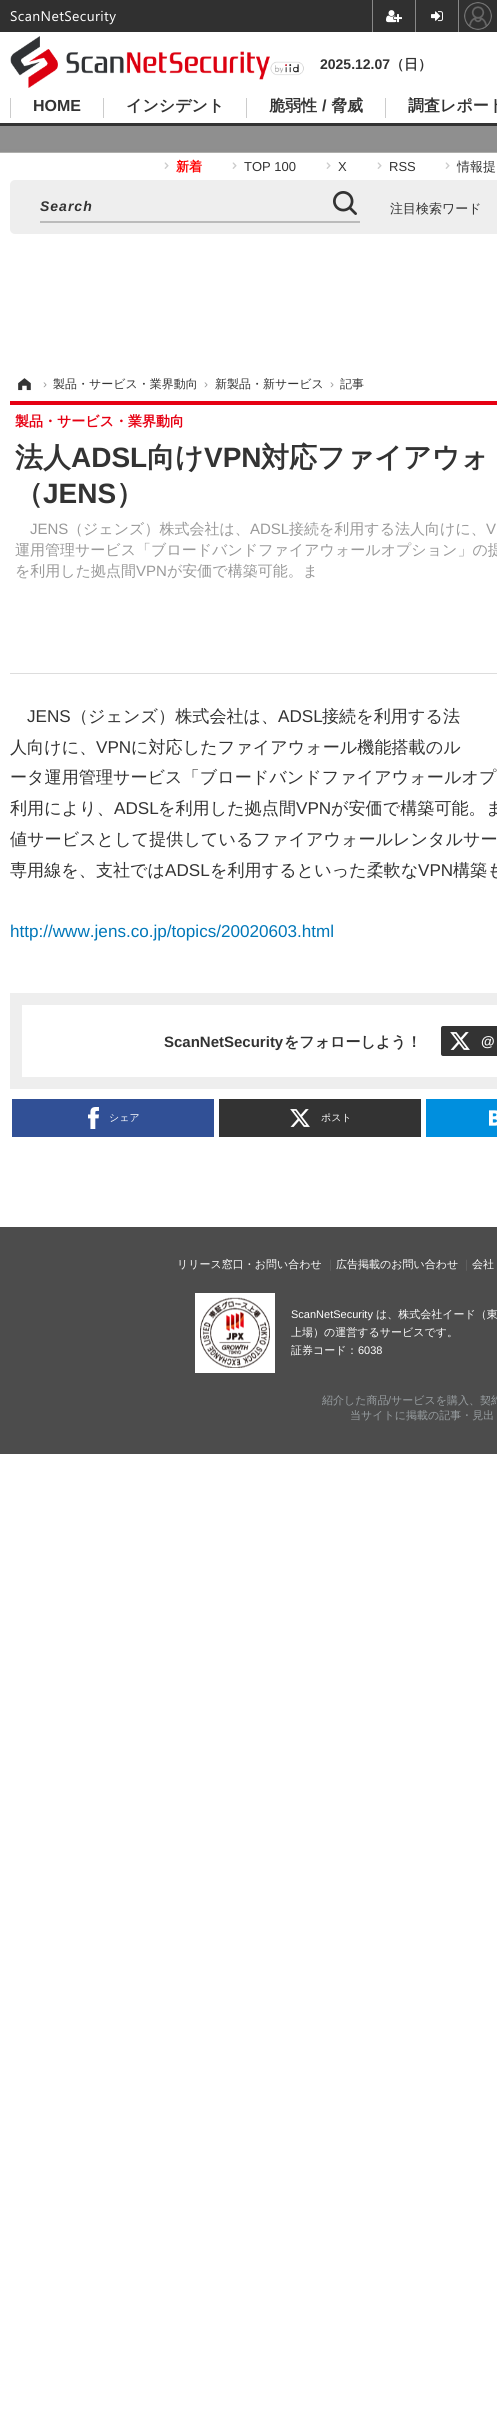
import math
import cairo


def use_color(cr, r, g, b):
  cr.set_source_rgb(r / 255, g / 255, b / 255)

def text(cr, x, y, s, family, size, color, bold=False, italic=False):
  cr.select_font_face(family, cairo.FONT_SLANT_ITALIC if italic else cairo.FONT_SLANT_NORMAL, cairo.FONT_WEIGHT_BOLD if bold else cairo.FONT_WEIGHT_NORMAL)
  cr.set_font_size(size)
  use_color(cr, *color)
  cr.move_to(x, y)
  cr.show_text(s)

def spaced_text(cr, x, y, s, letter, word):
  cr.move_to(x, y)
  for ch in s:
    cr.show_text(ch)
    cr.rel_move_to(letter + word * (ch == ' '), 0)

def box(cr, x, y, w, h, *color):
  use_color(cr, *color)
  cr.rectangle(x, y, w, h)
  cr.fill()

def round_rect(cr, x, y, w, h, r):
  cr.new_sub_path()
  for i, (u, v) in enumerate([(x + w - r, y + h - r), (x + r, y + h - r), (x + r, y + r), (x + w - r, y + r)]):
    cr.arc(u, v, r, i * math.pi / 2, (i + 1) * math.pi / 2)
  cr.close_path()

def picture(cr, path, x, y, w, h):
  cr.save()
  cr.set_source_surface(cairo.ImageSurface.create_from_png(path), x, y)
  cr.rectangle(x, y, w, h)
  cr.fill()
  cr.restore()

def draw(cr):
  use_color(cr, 255, 255, 255)
  cr.paint()
  box(cr, 0, 0, 497, 32, 48, 48, 48)
  box(cr, 372, 0, 1, 32, 136, 136, 136)
  picture(cr, "img_01.png", 386, 10, 16, 13)
  box(cr, 458, 0, 1, 32, 136, 136, 136)
  box(cr, 415, 0, 1, 32, 136, 136, 136)
  picture(cr, "img_02.png", 431, 11, 12, 11)
  picture(cr, "img_03.png", 464, 2, 28, 28)
  picture(cr, "img_04.png", 10, 36, 294, 52)
  picture(cr, "img_05.png", 0, 123, 497, 30)
  box(cr, 10, 98, 1, 20, 204, 204, 204)
  box(cr, 103, 98, 1, 20, 204, 204, 204)
  box(cr, 246, 98, 1, 20, 204, 204, 204)
  box(cr, 385, 98, 1, 20, 204, 204, 204)
  picture(cr, "img_06.png", 164, 162, 5, 7)
  picture(cr, "img_06.png", 232, 162, 5, 7)
  picture(cr, "img_06.png", 326, 162, 5, 7)
  picture(cr, "img_06.png", 377, 162, 5, 7)
  picture(cr, "img_06.png", 445, 162, 5, 7)
  use_color(cr, 238, 238, 238)
  round_rect(cr, 10, 180, 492, 54, 5)
  cr.fill()
  box(cr, 40, 221, 320, 2, 187, 187, 187)
  picture(cr, "img_07.png", 333, 191, 24, 24)
  picture(cr, "img_08.png", 18, 378, 13, 13)
  box(cr, 10, 401, 487, 4, 230, 0, 18)
  box(cr, 10, 673, 487, 1, 221, 221, 221)
  cr.rectangle(16, 999, 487, 84)
  use_color(cr, 238, 238, 238)
  cr.set_line_width(12)
  cr.stroke()
  use_color(cr, 51, 51, 51)
  round_rect(cr, 441, 1026, 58, 30, 2)
  cr.fill()
  picture(cr, "img_09.png", 450, 1032, 20, 18)
  box(cr, 12, 1099, 202, 38, 49, 80, 150)
  picture(cr, "img_10.png", 88, 1107, 11, 22)
  box(cr, 219, 1099, 202, 38, 51, 51, 51)
  picture(cr, "img_09.png", 290, 1109, 20, 18)
  box(cr, 426, 1099, 71, 38, 0, 143, 222)
  picture(cr, "img_11.png", 489, 1110, 8, 16)
  box(cr, 0, 1227, 497, 227, 76, 76, 76)
  box(cr, 195, 1293, 80, 80, 255, 255, 255)
  picture(cr, "img_12.png", 200, 1297, 70, 71)
  cr.select_font_face("Segoe UI")
  cr.set_font_size(14)
  spaced_text(cr, 10, 21, "ScanNetSecurity", 0.4, 0)
  text(cr, 320, 69, "2025.12.07", "Liberation Sans", 14, (51, 51, 51), bold=True)
  text(cr, 390, 69, "（日）", "WenQuanYi Zen Hei", 14, (51, 51, 51), bold=True)
  text(cr, 33, 111, "HOME", "Liberation Sans", 16, (51, 51, 51), bold=True)
  text(cr, 126, 111, "インシデント", "WenQuanYi Zen Hei", 16, (51, 51, 51), bold=True)
  text(cr, 269, 111, "脆弱性", "WenQuanYi Zen Hei", 16, (51, 51, 51), bold=True)
  text(cr, 322, 111, "/", "Liberation Sans", 16, (51, 51, 51), bold=True)
  text(cr, 331, 111, "脅威", "WenQuanYi Zen Hei", 16, (51, 51, 51), bold=True)
  text(cr, 408, 111, "調査レポート", "WenQuanYi Zen Hei", 16, (51, 51, 51), bold=True)
  text(cr, 176, 171, "新着", "WenQuanYi Zen Hei", 13, (255, 0, 0), bold=True)
  text(cr, 244, 171, "TOP 100", "Liberation Sans", 13, (51, 51, 51))
  text(cr, 338, 171, "X", "Liberation Sans", 13, (51, 51, 51))
  text(cr, 389, 171, "RSS", "Liberation Sans", 13, (51, 51, 51))
  text(cr, 457, 171, "情報提", "WenQuanYi Zen Hei Medium", 13, (51, 51, 51))
  cr.select_font_face("Liberation Sans", cairo.FONT_SLANT_ITALIC, cairo.FONT_WEIGHT_BOLD)
  cr.set_font_size(14)
  spaced_text(cr, 40, 211, "Search", 1, 0)
  text(cr, 390, 213, "注目検索ワード", "WenQuanYi Zen Hei Medium", 13, (51, 51, 51))
  text(cr, 43, 388, "›", "Liberation Sans", 12, (153, 153, 153))
  text(cr, 53, 388, "製品・サービス・業界動向", "WenQuanYi Zen Hei Medium", 12, (51, 51, 51))
  text(cr, 204, 388, "›", "Liberation Sans", 12, (153, 153, 153))
  text(cr, 215, 388, "新製品・新サービス", "WenQuanYi Zen Hei Medium", 12, (51, 51, 51))
  text(cr, 330, 388, "›", "Liberation Sans", 12, (153, 153, 153))
  text(cr, 340, 388, "記事", "WenQuanYi Zen Hei Medium", 12, (51, 51, 51))
  text(cr, 15, 426, "製品・サービス・業界動向", "WenQuanYi Zen Hei", 14, (230, 0, 18), bold=True)
  text(cr, 15, 467, "法人", "WenQuanYi Zen Hei", 28, (51, 51, 51), bold=True)
  text(cr, 71, 467, "ADSL", "Liberation Sans", 28, (51, 51, 51), bold=True)
  text(cr, 147, 467, "向け", "WenQuanYi Zen Hei", 28, (51, 51, 51), bold=True)
  text(cr, 204, 467, "VPN", "Liberation Sans", 28, (51, 51, 51), bold=True)
  text(cr, 261, 467, "対応ファイアウォ", "WenQuanYi Zen Hei", 28, (51, 51, 51), bold=True)
  text(cr, 15, 503, "（", "WenQuanYi Zen Hei", 28, (51, 51, 51), bold=True)
  text(cr, 43, 503, "JENS", "Liberation Sans", 28, (51, 51, 51), bold=True)
  text(cr, 116, 503, "）", "WenQuanYi Zen Hei", 28, (51, 51, 51), bold=True)
  text(cr, 30, 534, "JENS", "Liberation Sans", 15, (153, 153, 153))
  text(cr, 68, 534, "（ジェンズ）株式会社は、", "WenQuanYi Zen Hei Medium", 15, (153, 153, 153))
  text(cr, 250, 534, "ADSL", "Liberation Sans", 15, (153, 153, 153))
  text(cr, 289, 534, "接続を利用する法人向けに、", "WenQuanYi Zen Hei Medium", 15, (153, 153, 153))
  text(cr, 486, 534, "V", "Liberation Sans", 15, (153, 153, 153))
  text(cr, 15, 555, "運用管理サービス「ブロードバンドファイアウォールオプション」の提", "WenQuanYi Zen Hei Medium", 15, (153, 153, 153))
  text(cr, 15, 576, "を利用した拠点間", "WenQuanYi Zen Hei Medium", 15, (153, 153, 153))
  text(cr, 136, 576, "VPN", "Liberation Sans", 15, (153, 153, 153))
  text(cr, 167, 576, "が安価で構築可能。ま", "WenQuanYi Zen Hei Medium", 15, (153, 153, 153))
  text(cr, 27, 722, "JENS", "Liberation Sans", 17.1, (51, 51, 51))
  text(cr, 71, 722, "（ジェンズ）株式会社は、", "WenQuanYi Zen Hei Medium", 17.1, (51, 51, 51))
  text(cr, 278, 722, "ADSL", "Liberation Sans", 17.1, (51, 51, 51))
  text(cr, 322, 722, "接続を利用する法", "WenQuanYi Zen Hei Medium", 17.1, (51, 51, 51))
  text(cr, 10, 753, "人向けに、", "WenQuanYi Zen Hei Medium", 17.1, (51, 51, 51))
  text(cr, 96, 753, "VPN", "Liberation Sans", 17.1, (51, 51, 51))
  text(cr, 131, 753, "に対応したファイアウォール機能搭載のル", "WenQuanYi Zen Hei Medium", 17.1, (51, 51, 51))
  text(cr, 10, 783, "ータ運用管理サービス「ブロードバンドファイアウォールオプ", "WenQuanYi Zen Hei Medium", 17.1, (51, 51, 51))
  text(cr, 10, 814, "利用により、", "WenQuanYi Zen Hei Medium", 17.1, (51, 51, 51))
  text(cr, 114, 814, "ADSL", "Liberation Sans", 17.1, (51, 51, 51))
  text(cr, 158, 814, "を利用した拠点間", "WenQuanYi Zen Hei Medium", 17.1, (51, 51, 51))
  text(cr, 296, 814, "VPN", "Liberation Sans", 17.1, (51, 51, 51))
  text(cr, 331, 814, "が安価で構築可能。ま", "WenQuanYi Zen Hei Medium", 17.1, (51, 51, 51))
  text(cr, 10, 845, "値サービスとして提供しているファイアウォールレンタルサー", "WenQuanYi Zen Hei Medium", 17.1, (51, 51, 51))
  text(cr, 10, 876, "専用線を、支社では", "WenQuanYi Zen Hei Medium", 17.1, (51, 51, 51))
  text(cr, 165, 876, "ADSL", "Liberation Sans", 17.1, (51, 51, 51))
  text(cr, 210, 876, "を利用するといった柔軟な", "WenQuanYi Zen Hei Medium", 17.1, (51, 51, 51))
  text(cr, 418, 876, "VPN", "Liberation Sans", 17.1, (51, 51, 51))
  text(cr, 453, 876, "構築も", "WenQuanYi Zen Hei Medium", 17.1, (51, 51, 51))
  text(cr, 10, 937, "http://www.jens.co.jp/topics/20020603.html", "Liberation Sans", 17.1, (0, 119, 185))
  text(cr, 164, 1047, "ScanNetSecurity", "Liberation Sans", 15, (51, 51, 51), bold=True)
  text(cr, 284, 1047, "をフォローしよう！", "WenQuanYi Zen Hei", 15, (51, 51, 51), bold=True)
  text(cr, 481, 1046, "@", "Liberation Sans", 14, (255, 255, 255), bold=True)
  text(cr, 109, 1121, "シェア", "WenQuanYi Zen Hei Medium", 10, (255, 255, 255))
  text(cr, 321, 1121, "ポスト", "WenQuanYi Zen Hei Medium", 10, (255, 255, 255))
  text(cr, 177, 1268, "リリース窓口・お問い合わせ", "WenQuanYi Zen Hei Medium", 11, (255, 255, 255))
  text(cr, 325, 1268, "｜", "WenQuanYi Zen Hei Medium", 11, (102, 102, 102))
  text(cr, 336, 1268, "広告掲載のお問い合わせ", "WenQuanYi Zen Hei Medium", 11, (255, 255, 255))
  text(cr, 461, 1268, "｜", "WenQuanYi Zen Hei Medium", 11, (102, 102, 102))
  text(cr, 472, 1268, "会社", "WenQuanYi Zen Hei Medium", 11, (255, 255, 255))
  text(cr, 291, 1318, "ScanNetSecurity", "Liberation Sans", 11, (255, 255, 255))
  text(cr, 376, 1318, "は、株式会社イード（東", "WenQuanYi Zen Hei Medium", 11, (255, 255, 255))
  text(cr, 291, 1336, "上場）の運営するサービスです。", "WenQuanYi Zen Hei Medium", 11, (255, 255, 255))
  text(cr, 291, 1354, "証券コード：", "WenQuanYi Zen Hei Medium", 11, (255, 255, 255))
  text(cr, 358, 1354, "6038", "Liberation Sans", 11, (255, 255, 255))
  text(cr, 322, 1404, "紹介した商品", "WenQuanYi Zen Hei Medium", 11, (152, 158, 161))
  text(cr, 388, 1404, "/", "Liberation Sans", 11, (152, 158, 161))
  text(cr, 391, 1404, "サービスを購入、契約", "WenQuanYi Zen Hei Medium", 11, (152, 158, 161))
  text(cr, 350, 1419, "当サイトに掲載の記事・見出", "WenQuanYi Zen Hei Medium", 11, (152, 158, 161))


surface = cairo.ImageSurface(cairo.FORMAT_RGB24, 497, 2414)
cr = cairo.Context(surface)
options = cairo.FontOptions()
options.set_hint_metrics(cairo.HINT_METRICS_OFF)
options.set_hint_style(cairo.HINT_STYLE_NONE)
cr.set_font_options(options)
cr.set_miter_limit(4)
draw(cr)
surface.write_to_png("out.png")
